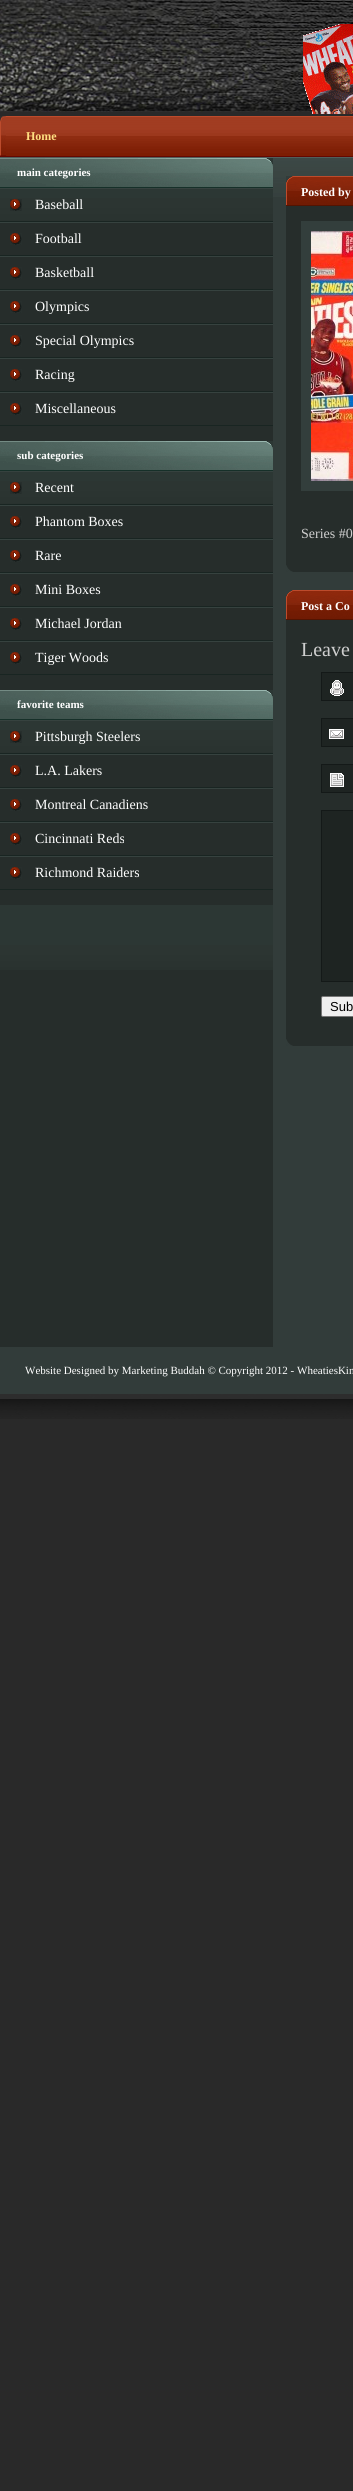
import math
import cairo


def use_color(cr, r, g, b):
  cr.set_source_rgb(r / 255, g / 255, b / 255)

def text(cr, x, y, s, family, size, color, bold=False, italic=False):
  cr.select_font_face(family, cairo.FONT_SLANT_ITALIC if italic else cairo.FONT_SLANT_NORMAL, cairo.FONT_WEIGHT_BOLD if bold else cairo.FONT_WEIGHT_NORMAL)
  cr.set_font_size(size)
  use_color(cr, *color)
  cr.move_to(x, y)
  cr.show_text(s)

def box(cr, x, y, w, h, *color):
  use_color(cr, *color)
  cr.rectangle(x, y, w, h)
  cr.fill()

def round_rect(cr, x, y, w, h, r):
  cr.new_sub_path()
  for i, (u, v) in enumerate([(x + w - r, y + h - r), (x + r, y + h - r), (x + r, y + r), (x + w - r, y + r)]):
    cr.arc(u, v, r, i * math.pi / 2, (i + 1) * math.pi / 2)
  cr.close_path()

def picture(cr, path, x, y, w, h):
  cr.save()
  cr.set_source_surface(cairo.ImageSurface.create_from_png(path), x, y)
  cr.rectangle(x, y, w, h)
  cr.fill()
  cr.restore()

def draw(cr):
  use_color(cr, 41, 41, 41)
  cr.paint()
  picture(cr, "img_01.png", 0, 0, 353, 112)
  picture(cr, "img_02.png", 303, 24, 50, 90)
  picture(cr, "img_03.png", 0, 116, 353, 41)
  picture(cr, "img_04.png", 0, 116, 6, 40)
  box(cr, 273, 197, 80, 1150, 50, 60, 58)
  picture(cr, "img_05.png", 273, 158, 80, 39)
  box(cr, 0, 157, 353, 1, 81, 94, 91)
  box(cr, 0, 223, 273, 218, 38, 45, 43)
  picture(cr, "img_06.png", 0, 158, 273, 63)
  picture(cr, "img_07.png", 0, 158, 273, 30)
  picture(cr, "img_08.png", 10, 199, 12, 12)
  box(cr, 0, 188, 273, 1, 54, 66, 63)
  box(cr, 0, 221, 273, 1, 25, 37, 34)
  picture(cr, "img_08.png", 10, 233, 12, 12)
  box(cr, 0, 222, 273, 1, 54, 66, 63)
  box(cr, 0, 255, 273, 1, 25, 37, 34)
  picture(cr, "img_08.png", 10, 267, 12, 12)
  box(cr, 0, 256, 273, 1, 54, 66, 63)
  box(cr, 0, 289, 273, 1, 25, 37, 34)
  picture(cr, "img_08.png", 10, 301, 12, 12)
  box(cr, 0, 290, 273, 1, 54, 66, 63)
  box(cr, 0, 323, 273, 1, 25, 37, 34)
  picture(cr, "img_08.png", 10, 335, 12, 12)
  box(cr, 0, 324, 273, 1, 54, 66, 63)
  box(cr, 0, 357, 273, 1, 25, 37, 34)
  picture(cr, "img_08.png", 10, 369, 12, 12)
  box(cr, 0, 358, 273, 1, 54, 66, 63)
  box(cr, 0, 391, 273, 1, 25, 37, 34)
  picture(cr, "img_08.png", 10, 403, 12, 12)
  box(cr, 0, 392, 273, 1, 54, 66, 63)
  box(cr, 0, 425, 273, 1, 25, 37, 34)
  box(cr, 0, 506, 273, 184, 38, 45, 43)
  picture(cr, "img_06.png", 0, 441, 273, 63)
  picture(cr, "img_07.png", 0, 441, 273, 30)
  picture(cr, "img_08.png", 10, 482, 12, 12)
  box(cr, 0, 471, 273, 1, 54, 66, 63)
  box(cr, 0, 504, 273, 1, 25, 37, 34)
  picture(cr, "img_08.png", 10, 516, 12, 12)
  box(cr, 0, 505, 273, 1, 54, 66, 63)
  box(cr, 0, 538, 273, 1, 25, 37, 34)
  picture(cr, "img_08.png", 10, 550, 12, 12)
  box(cr, 0, 539, 273, 1, 54, 66, 63)
  box(cr, 0, 572, 273, 1, 25, 37, 34)
  picture(cr, "img_08.png", 10, 584, 12, 12)
  box(cr, 0, 573, 273, 1, 54, 66, 63)
  box(cr, 0, 606, 273, 1, 25, 37, 34)
  picture(cr, "img_08.png", 10, 618, 12, 12)
  box(cr, 0, 607, 273, 1, 54, 66, 63)
  box(cr, 0, 640, 273, 1, 25, 37, 34)
  picture(cr, "img_08.png", 10, 652, 12, 12)
  box(cr, 0, 641, 273, 1, 54, 66, 63)
  box(cr, 0, 674, 273, 1, 25, 37, 34)
  box(cr, 0, 755, 273, 150, 38, 45, 43)
  picture(cr, "img_06.png", 0, 690, 273, 63)
  picture(cr, "img_07.png", 0, 690, 273, 30)
  picture(cr, "img_08.png", 10, 731, 12, 12)
  box(cr, 0, 720, 273, 1, 54, 66, 63)
  box(cr, 0, 753, 273, 1, 25, 37, 34)
  picture(cr, "img_08.png", 10, 765, 12, 12)
  box(cr, 0, 754, 273, 1, 54, 66, 63)
  box(cr, 0, 787, 273, 1, 25, 37, 34)
  picture(cr, "img_08.png", 10, 799, 12, 12)
  box(cr, 0, 788, 273, 1, 54, 66, 63)
  box(cr, 0, 821, 273, 1, 25, 37, 34)
  picture(cr, "img_08.png", 10, 833, 12, 12)
  box(cr, 0, 822, 273, 1, 54, 66, 63)
  box(cr, 0, 855, 273, 1, 25, 37, 34)
  picture(cr, "img_08.png", 10, 867, 12, 12)
  box(cr, 0, 856, 273, 1, 54, 66, 63)
  box(cr, 0, 889, 273, 1, 25, 37, 34)
  box(cr, 0, 970, 273, 377, 38, 45, 43)
  picture(cr, "img_09.png", 0, 905, 273, 65)
  picture(cr, "img_10.png", 286, 176, 67, 30)
  box(cr, 286, 206, 67, 366, 38, 45, 43)
  picture(cr, "img_11.png", 286, 565, 7, 7)
  cr.rectangle(306, 226, 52, 260)
  use_color(cr, 51, 62, 60)
  cr.set_line_width(10)
  cr.stroke()
  picture(cr, "img_12.png", 311, 231, 42, 250)
  picture(cr, "img_10.png", 286, 590, 67, 30)
  box(cr, 286, 620, 67, 426, 38, 45, 43)
  picture(cr, "img_11.png", 286, 1039, 7, 7)
  box(cr, 322, 673, 31, 27, 30, 36, 34)
  picture(cr, "img_13.png", 330, 680, 14, 16)
  cr.rectangle(321.5, 672.5, 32, 28)
  use_color(cr, 20, 25, 24)
  cr.set_line_width(1)
  cr.stroke()
  box(cr, 322, 719, 31, 27, 30, 36, 34)
  picture(cr, "img_14.png", 329, 729, 15, 10)
  cr.rectangle(321.5, 718.5, 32, 28)
  use_color(cr, 20, 25, 24)
  cr.stroke()
  box(cr, 322, 765, 31, 27, 30, 36, 34)
  picture(cr, "img_15.png", 330, 773, 14, 14)
  cr.rectangle(321.5, 764.5, 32, 28)
  use_color(cr, 20, 25, 24)
  cr.stroke()
  use_color(cr, 30, 36, 34)
  cr.rectangle(321.5, 810.5, 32, 171)
  cr.fill_preserve()
  use_color(cr, 20, 25, 24)
  cr.stroke()
  use_color(cr, 239, 239, 239)
  round_rect(cr, 321.5, 996.5, 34, 20, 1.5)
  cr.fill_preserve()
  use_color(cr, 118, 118, 118)
  cr.stroke()
  picture(cr, "img_16.png", 0, 1347, 353, 72)
  text(cr, 26, 140, "Home", "Liberation Serif", 12, (255, 223, 129), bold=True)
  text(cr, 17, 176, "main categories", "Liberation Serif", 11, (255, 255, 255), bold=True)
  text(cr, 35, 209, "Baseball", "Liberation Serif", 14, (255, 255, 255))
  text(cr, 35, 243, "Football", "Liberation Serif", 14, (255, 255, 255))
  text(cr, 35, 277, "Basketball", "Liberation Serif", 14, (255, 255, 255))
  text(cr, 35, 311, "Olympics", "Liberation Serif", 14, (255, 255, 255))
  text(cr, 35, 345, "Special Olympics", "Liberation Serif", 14, (255, 255, 255))
  text(cr, 35, 379, "Racing", "Liberation Serif", 14, (255, 255, 255))
  text(cr, 35, 413, "Miscellaneous", "Liberation Serif", 14, (255, 255, 255))
  text(cr, 17, 459, "sub categories", "Liberation Serif", 11, (255, 255, 255), bold=True)
  text(cr, 35, 492, "Recent", "Liberation Serif", 14, (255, 255, 255))
  text(cr, 35, 526, "Phantom Boxes", "Liberation Serif", 14, (255, 255, 255))
  text(cr, 35, 560, "Rare", "Liberation Serif", 14, (255, 255, 255))
  text(cr, 35, 594, "Mini Boxes", "Liberation Serif", 14, (255, 255, 255))
  text(cr, 35, 628, "Michael Jordan", "Liberation Serif", 14, (255, 255, 255))
  text(cr, 35, 662, "Tiger Woods", "Liberation Serif", 14, (255, 255, 255))
  text(cr, 17, 708, "favorite teams", "Liberation Serif", 11, (255, 255, 255), bold=True)
  text(cr, 35, 741, "Pittsburgh Steelers", "Liberation Serif", 14, (255, 255, 255))
  text(cr, 35, 775, "L.A. Lakers", "Liberation Serif", 14, (255, 255, 255))
  text(cr, 35, 809, "Montreal Canadiens", "Liberation Serif", 14, (255, 255, 255))
  text(cr, 35, 843, "Cincinnati Reds", "Liberation Serif", 14, (255, 255, 255))
  text(cr, 35, 877, "Richmond Raiders", "Liberation Serif", 14, (255, 255, 255))
  text(cr, 301, 196, "Posted by", "Liberation Serif", 12, (255, 255, 255), bold=True)
  text(cr, 301, 538, "Series #0", "Liberation Serif", 14, (207, 207, 207))
  text(cr, 301, 610, "Post a Co", "Liberation Serif", 12, (255, 255, 255), bold=True)
  text(cr, 301, 656, "Leave", "Liberation Serif", 20, (207, 207, 207))
  text(cr, 330, 1011, "Sub", "Liberation Sans", 13, (0, 0, 0))
  text(cr, 25, 1374, "Website Designed by Marketing Buddah © Copyright 2012 - WheatiesKin", "Liberation Serif", 11, (255, 255, 255))


surface = cairo.ImageSurface(cairo.FORMAT_RGB24, 353, 2491)
cr = cairo.Context(surface)
options = cairo.FontOptions()
options.set_hint_metrics(cairo.HINT_METRICS_OFF)
options.set_hint_style(cairo.HINT_STYLE_NONE)
cr.set_font_options(options)
cr.set_miter_limit(4)
draw(cr)
surface.write_to_png("out.png")
